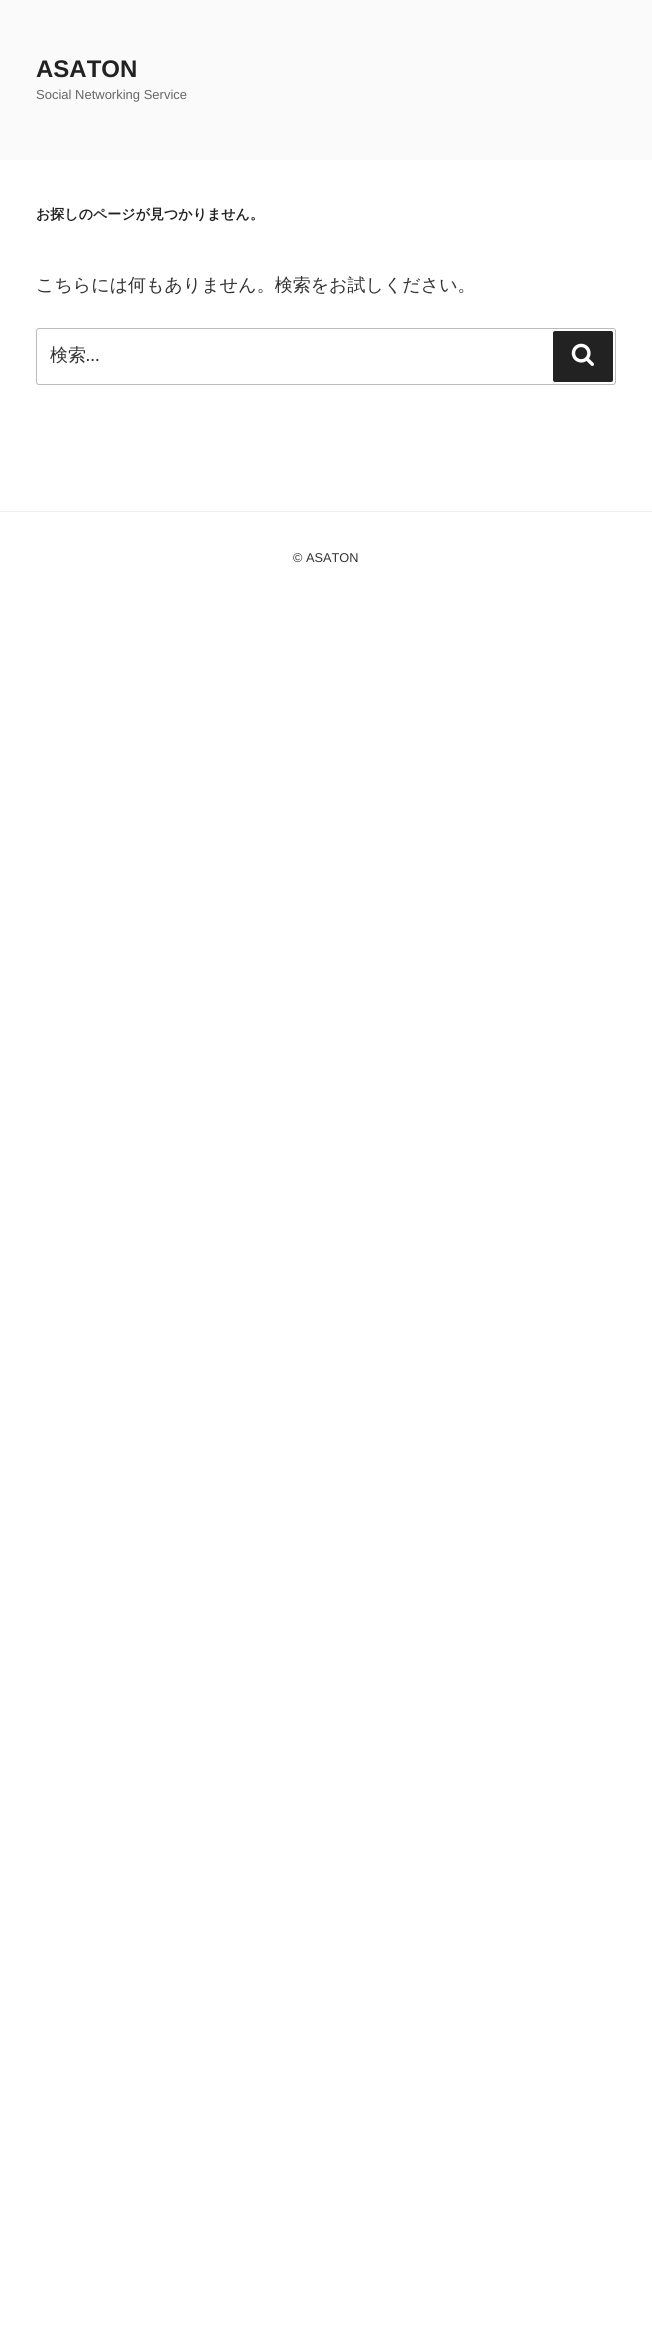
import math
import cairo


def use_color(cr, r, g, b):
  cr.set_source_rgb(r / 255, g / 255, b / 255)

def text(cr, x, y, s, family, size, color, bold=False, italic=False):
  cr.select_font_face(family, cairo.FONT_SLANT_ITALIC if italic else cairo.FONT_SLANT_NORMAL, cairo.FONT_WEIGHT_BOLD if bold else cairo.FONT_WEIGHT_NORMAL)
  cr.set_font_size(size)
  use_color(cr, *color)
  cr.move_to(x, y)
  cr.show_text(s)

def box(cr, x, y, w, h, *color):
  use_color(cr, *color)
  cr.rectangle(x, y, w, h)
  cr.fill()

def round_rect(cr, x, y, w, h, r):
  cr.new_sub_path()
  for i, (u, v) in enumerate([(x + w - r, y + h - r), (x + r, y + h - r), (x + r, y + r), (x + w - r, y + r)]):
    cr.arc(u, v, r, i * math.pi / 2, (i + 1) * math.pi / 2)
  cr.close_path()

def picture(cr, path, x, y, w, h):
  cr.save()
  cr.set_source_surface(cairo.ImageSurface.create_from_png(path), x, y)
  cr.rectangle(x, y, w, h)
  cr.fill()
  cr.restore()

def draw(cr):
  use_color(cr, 255, 255, 255)
  cr.paint()
  box(cr, 0, 0, 652, 160, 250, 250, 250)
  round_rect(cr, 36.5, 328.5, 579, 56, 2.5)
  use_color(cr, 187, 187, 187)
  cr.set_line_width(1)
  cr.stroke()
  use_color(cr, 34, 34, 34)
  round_rect(cr, 553, 331, 60, 51, 2)
  cr.fill()
  picture(cr, "img_01.png", 571, 343, 23, 23)
  box(cr, 0, 511, 652, 1, 238, 238, 238)
  text(cr, 36, 77, "ASATON", "Liberation Sans", 24, (34, 34, 34), bold=True)
  text(cr, 36, 99, "Social Networking Service", "Liberation Sans", 13, (102, 102, 102))
  text(cr, 36, 219, "お探しのページが見つかりません。", "WenQuanYi Zen Hei", 14, (34, 34, 34), bold=True)
  text(cr, 36, 291, "こちらには何もありません。検索をお試しください。", "WenQuanYi Zen Hei Medium", 18, (51, 51, 51))
  text(cr, 50, 361, "検索", "WenQuanYi Zen Hei Medium", 18, (51, 51, 51))
  text(cr, 86, 361, "…", "Libre Franklin", 18, (51, 51, 51))
  text(cr, 293, 562, "© ASATON", "Liberation Sans", 12.75, (51, 51, 51))


surface = cairo.ImageSurface(cairo.FORMAT_RGB24, 652, 2348)
cr = cairo.Context(surface)
options = cairo.FontOptions()
options.set_hint_metrics(cairo.HINT_METRICS_OFF)
options.set_hint_style(cairo.HINT_STYLE_NONE)
cr.set_font_options(options)
cr.set_miter_limit(4)
draw(cr)
surface.write_to_png("out.png")
